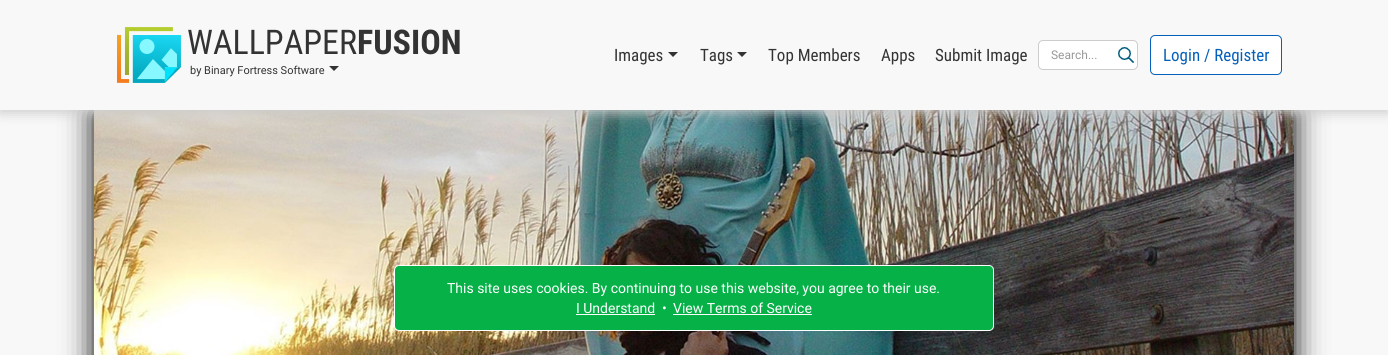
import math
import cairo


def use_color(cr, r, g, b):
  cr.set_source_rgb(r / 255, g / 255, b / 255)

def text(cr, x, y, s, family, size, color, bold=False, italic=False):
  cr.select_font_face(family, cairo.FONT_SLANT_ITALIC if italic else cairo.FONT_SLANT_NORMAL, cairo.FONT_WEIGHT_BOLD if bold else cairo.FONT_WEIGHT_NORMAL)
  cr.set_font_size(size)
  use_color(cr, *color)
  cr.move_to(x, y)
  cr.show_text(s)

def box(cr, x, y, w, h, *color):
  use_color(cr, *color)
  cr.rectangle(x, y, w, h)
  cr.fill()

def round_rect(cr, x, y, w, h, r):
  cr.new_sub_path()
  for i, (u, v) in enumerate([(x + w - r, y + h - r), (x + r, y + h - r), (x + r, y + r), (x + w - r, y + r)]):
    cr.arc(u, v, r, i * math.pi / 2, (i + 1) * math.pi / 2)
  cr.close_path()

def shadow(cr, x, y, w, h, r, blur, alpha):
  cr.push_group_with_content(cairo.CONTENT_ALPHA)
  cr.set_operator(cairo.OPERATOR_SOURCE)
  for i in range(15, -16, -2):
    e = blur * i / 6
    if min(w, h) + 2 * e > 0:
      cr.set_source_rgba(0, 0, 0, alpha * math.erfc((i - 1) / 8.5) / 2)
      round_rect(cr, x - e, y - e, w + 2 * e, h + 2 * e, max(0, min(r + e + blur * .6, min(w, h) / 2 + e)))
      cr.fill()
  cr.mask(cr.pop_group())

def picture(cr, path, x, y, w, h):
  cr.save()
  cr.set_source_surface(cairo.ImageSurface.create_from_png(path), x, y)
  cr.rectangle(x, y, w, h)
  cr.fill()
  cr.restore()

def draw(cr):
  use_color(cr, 248, 248, 248)
  cr.paint()
  use_color(cr, 0, 0, 0)
  shadow(cr, 94, 110, 1200, 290, 0, 15, 1)
  picture(cr, "img_03.png", 94, 110, 1200, 245)
  use_color(cr, 204, 204, 204)
  shadow(cr, 0, 3, 1388, 110, 0, 6, 1)
  box(cr, 0, 0, 1388, 110, 248, 248, 248)
  picture(cr, "img_01.png", 117, 27, 64, 56)
  use_color(cr, 51, 51, 51)
  cr.new_path()
  cr.move_to(329, 66)
  cr.line_to(339, 66)
  cr.line_to(334, 71)
  cr.close_path()
  cr.fill()
  cr.new_path()
  cr.move_to(668, 52)
  cr.line_to(678, 52)
  cr.line_to(673, 57)
  cr.close_path()
  cr.fill()
  cr.new_path()
  cr.move_to(737, 52)
  cr.line_to(747, 52)
  cr.line_to(742, 57)
  cr.close_path()
  cr.fill()
  use_color(cr, 255, 255, 255)
  round_rect(cr, 1038.5, 40.5, 99, 29, 4.5)
  cr.fill_preserve()
  use_color(cr, 204, 204, 204)
  cr.set_line_width(1)
  cr.stroke()
  picture(cr, "img_02.png", 1118, 47, 16, 16)
  use_color(cr, 255, 255, 255)
  round_rect(cr, 1150.5, 35.5, 131, 39, 4.5)
  cr.fill_preserve()
  use_color(cr, 4, 96, 186)
  cr.stroke()
  use_color(cr, 6, 178, 71)
  round_rect(cr, 394.5, 265.5, 599, 65, 4.5)
  cr.fill_preserve()
  use_color(cr, 255, 255, 255)
  cr.stroke()
  box(cr, 576, 314, 79, 1, 255, 255, 255)
  box(cr, 673, 314, 139, 1, 255, 255, 255)
  text(cr, 187, 54, "WALLPAPER", "Roboto Condensed", 34, (51, 51, 51))
  text(cr, 357, 54, "FUSION", "Roboto Condensed", 34, (51, 51, 51), bold=True)
  text(cr, 190, 74, "by Binary Fortress Software", "Roboto", 11, (51, 51, 51))
  text(cr, 614, 61, "Images", "Roboto Condensed", 17, (51, 51, 51))
  text(cr, 700, 61, "Tags", "Roboto Condensed", 17, (51, 51, 51))
  text(cr, 768, 61, "Top Members", "Roboto Condensed", 17, (51, 51, 51))
  text(cr, 881, 61, "Apps", "Roboto Condensed", 17, (51, 51, 51))
  text(cr, 935, 61, "Submit Image", "Roboto Condensed", 17, (51, 51, 51))
  text(cr, 1051, 59, "Search...", "Roboto", 12, (153, 153, 153))
  text(cr, 1163, 61, "Login / Register", "Roboto Condensed", 17, (4, 96, 186))
  text(cr, 447, 293, "This site uses cookies. By continuing to use this website, you agree to their use.", "Roboto", 14, (255, 255, 255))
  text(cr, 576, 313, "I Understand", "Roboto", 14, (255, 255, 255))
  text(cr, 662, 313, "•", "Roboto", 14, (255, 255, 255))
  text(cr, 673, 313, "View Terms of Service", "Roboto", 14, (255, 255, 255))


surface = cairo.ImageSurface(cairo.FORMAT_RGB24, 1388, 355)
cr = cairo.Context(surface)
options = cairo.FontOptions()
options.set_hint_metrics(cairo.HINT_METRICS_OFF)
options.set_hint_style(cairo.HINT_STYLE_NONE)
cr.set_font_options(options)
cr.set_miter_limit(4)
draw(cr)
surface.write_to_png("out.png")
